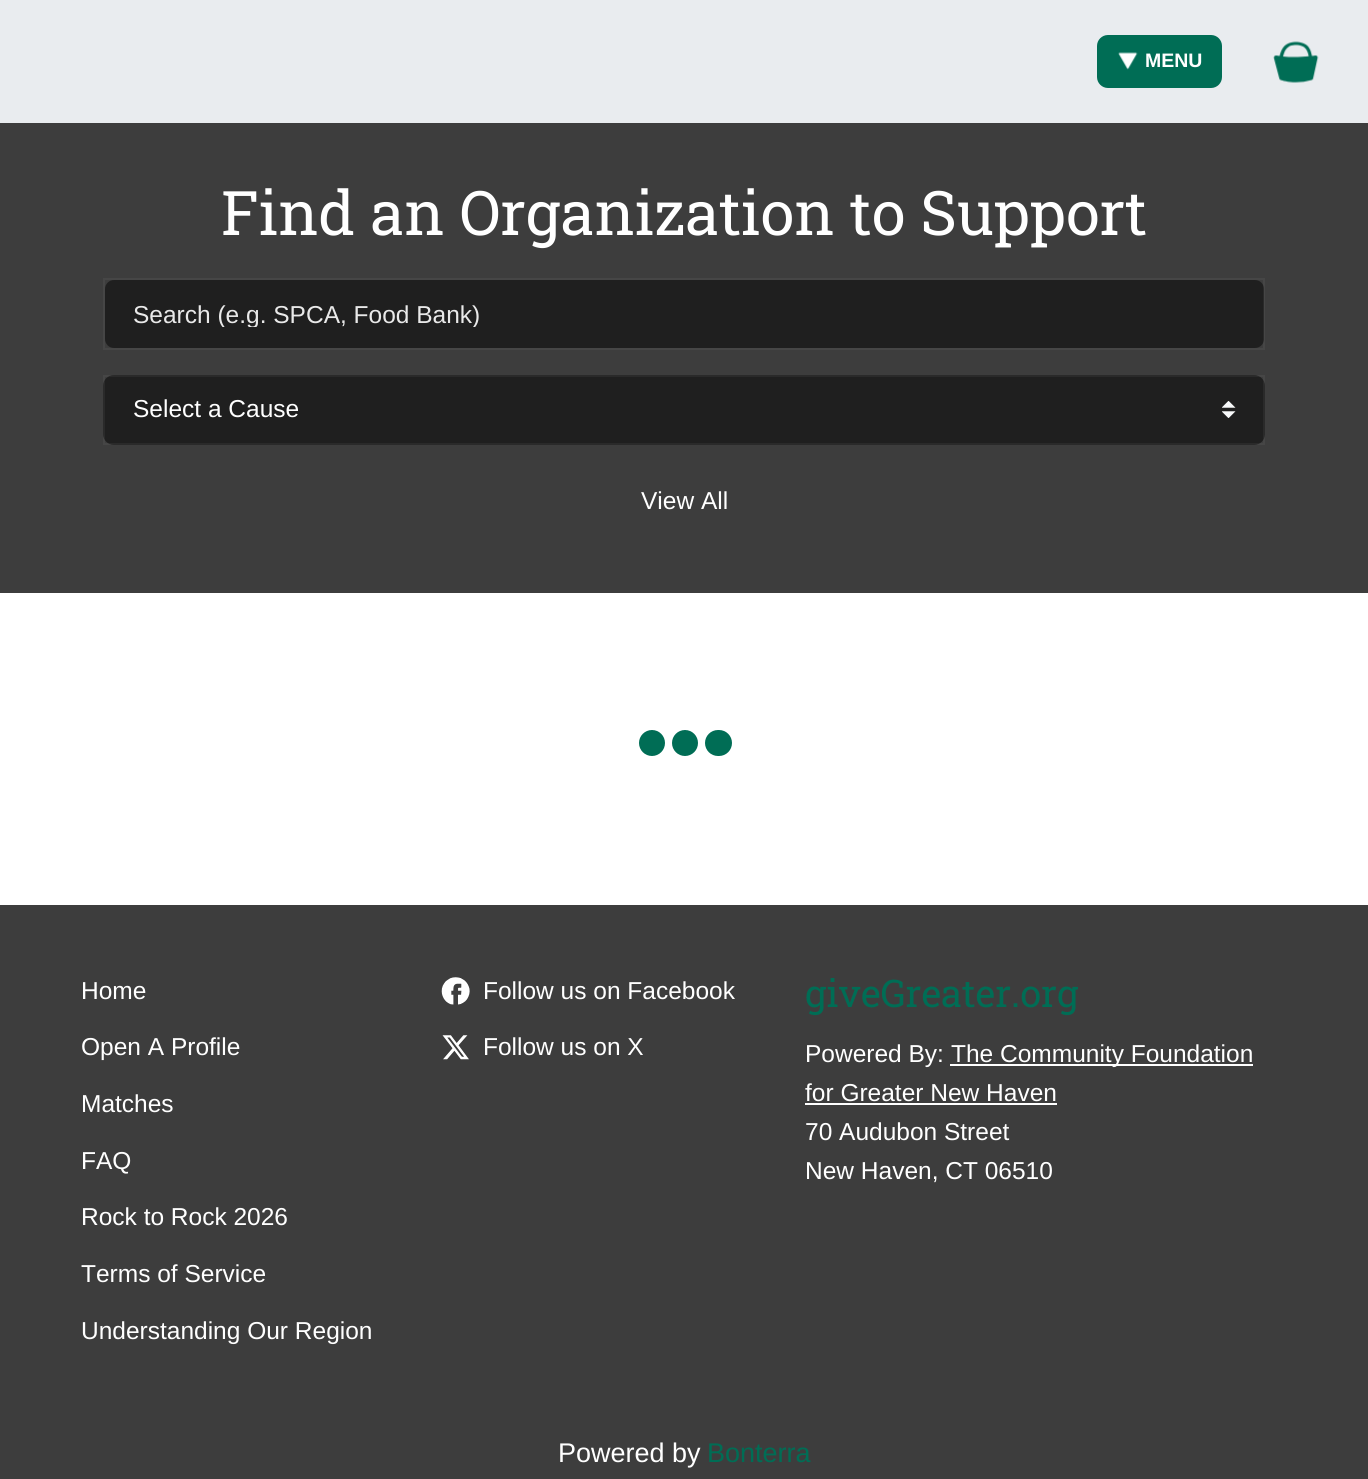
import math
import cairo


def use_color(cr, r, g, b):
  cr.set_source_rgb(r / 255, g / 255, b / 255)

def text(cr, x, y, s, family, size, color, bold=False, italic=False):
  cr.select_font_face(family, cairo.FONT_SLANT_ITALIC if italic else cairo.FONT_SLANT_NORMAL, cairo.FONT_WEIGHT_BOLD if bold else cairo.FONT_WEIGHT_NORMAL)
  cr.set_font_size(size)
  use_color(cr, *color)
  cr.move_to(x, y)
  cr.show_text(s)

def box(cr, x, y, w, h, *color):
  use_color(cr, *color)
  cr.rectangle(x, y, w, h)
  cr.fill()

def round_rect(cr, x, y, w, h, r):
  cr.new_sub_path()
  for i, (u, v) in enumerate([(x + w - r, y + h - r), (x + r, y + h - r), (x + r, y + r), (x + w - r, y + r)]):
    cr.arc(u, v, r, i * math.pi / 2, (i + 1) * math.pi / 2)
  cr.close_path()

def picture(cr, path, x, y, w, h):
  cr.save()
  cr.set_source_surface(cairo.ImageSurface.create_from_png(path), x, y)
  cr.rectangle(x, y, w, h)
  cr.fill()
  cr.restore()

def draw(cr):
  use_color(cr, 255, 255, 255)
  cr.paint()
  box(cr, 0, 0, 1368, 123, 233, 236, 239)
  use_color(cr, 0, 109, 85)
  round_rect(cr, 1097, 35, 125, 53, 11)
  cr.fill()
  picture(cr, "img_01.png", 1118, 52, 20, 18)
  picture(cr, "img_02.png", 1273, 41, 46, 42)
  box(cr, 0, 123, 1368, 470, 61, 61, 61)
  use_color(cr, 31, 31, 31)
  round_rect(cr, 105, 280, 1159, 68, 9)
  cr.fill()
  cr.rectangle(104, 279, 1160, 70)
  cr.set_source_rgba(1, 1, 1, 0.05)
  cr.stroke()
  use_color(cr, 31, 31, 31)
  round_rect(cr, 103, 375, 1162, 70, 11)
  cr.fill()
  picture(cr, "img_03.png", 1222, 401, 14, 17)
  cr.rectangle(104, 376, 1160, 68)
  cr.set_source_rgba(1, 1, 1, 0.05)
  cr.stroke()
  use_color(cr, 0, 109, 85)
  cr.arc(652, 743, 13, 0, 2 * math.pi)
  cr.fill()
  cr.arc(685, 743, 13, 0, 2 * math.pi)
  cr.fill()
  round_rect(cr, 705, 730, 27, 26, 13)
  cr.fill()
  box(cr, 0, 905, 1368, 574, 61, 61, 61)
  picture(cr, "img_04.png", 441, 977, 29, 28)
  picture(cr, "img_05.png", 442, 1035, 27, 25)
  box(cr, 950, 1064, 303, 2, 255, 255, 255)
  box(cr, 805, 1103, 252, 2, 255, 255, 255)
  text(cr, 1145, 67, "MENU", "Liberation Sans", 19.5, (255, 255, 255), bold=True)
  text(cr, 221, 235, "Find an Organization to Support", "Roboto Slab", 61.4, (255, 255, 255))
  cr.save()
  cr.rectangle(133, 299, 1103, 28)
  cr.clip()
  text(cr, 133, 323, "Search (e.g. SPCA, Food Bank)", "Liberation Sans", 24.5, (233, 233, 233))
  cr.restore()
  text(cr, 133, 417, "Select a Cause", "Liberation Sans", 24.5, (255, 255, 255))
  text(cr, 641, 509, "View All", "Liberation Sans", 24.5, (255, 255, 255))
  text(cr, 81, 999, "Home", "Liberation Sans", 24.5, (255, 255, 255))
  text(cr, 81, 1055, "Open A Profile", "Liberation Sans", 24.5, (255, 255, 255))
  text(cr, 81, 1112, "Matches", "Liberation Sans", 24.5, (255, 255, 255))
  text(cr, 81, 1169, "FAQ", "Liberation Sans", 24.5, (255, 255, 255))
  text(cr, 81, 1225, "Rock to Rock 2026", "Liberation Sans", 24.5, (255, 255, 255))
  text(cr, 81, 1282, "Terms of Service", "Liberation Sans", 24.5, (255, 255, 255))
  text(cr, 81, 1339, "Understanding Our Region", "Liberation Sans", 24.5, (255, 255, 255))
  text(cr, 483, 999, "Follow us on Facebook", "Liberation Sans", 24.5, (255, 255, 255))
  text(cr, 483, 1055, "Follow us on X", "Liberation Sans", 24.5, (255, 255, 255))
  text(cr, 805, 1007, "giveGreater.org", "Roboto Slab", 38, (0, 109, 85))
  text(cr, 805, 1062, "Powered By:", "Liberation Sans", 24.5, (255, 255, 255))
  text(cr, 951, 1062, "The Community Foundation", "Liberation Sans", 24.5, (255, 255, 255))
  text(cr, 805, 1101, "for Greater New Haven", "Liberation Sans", 24.5, (255, 255, 255))
  text(cr, 805, 1140, "70 Audubon Street", "Liberation Sans", 24.5, (255, 255, 255))
  text(cr, 805, 1179, "New Haven, CT 06510", "Liberation Sans", 24.5, (255, 255, 255))
  text(cr, 558, 1462, "Powered by", "Liberation Sans", 27, (255, 255, 255))
  text(cr, 707, 1462, "Bonterra", "Liberation Sans", 27, (0, 109, 85))


surface = cairo.ImageSurface(cairo.FORMAT_RGB24, 1368, 1479)
cr = cairo.Context(surface)
options = cairo.FontOptions()
options.set_hint_metrics(cairo.HINT_METRICS_OFF)
options.set_hint_style(cairo.HINT_STYLE_NONE)
cr.set_font_options(options)
cr.set_miter_limit(4)
draw(cr)
surface.write_to_png("out.png")
